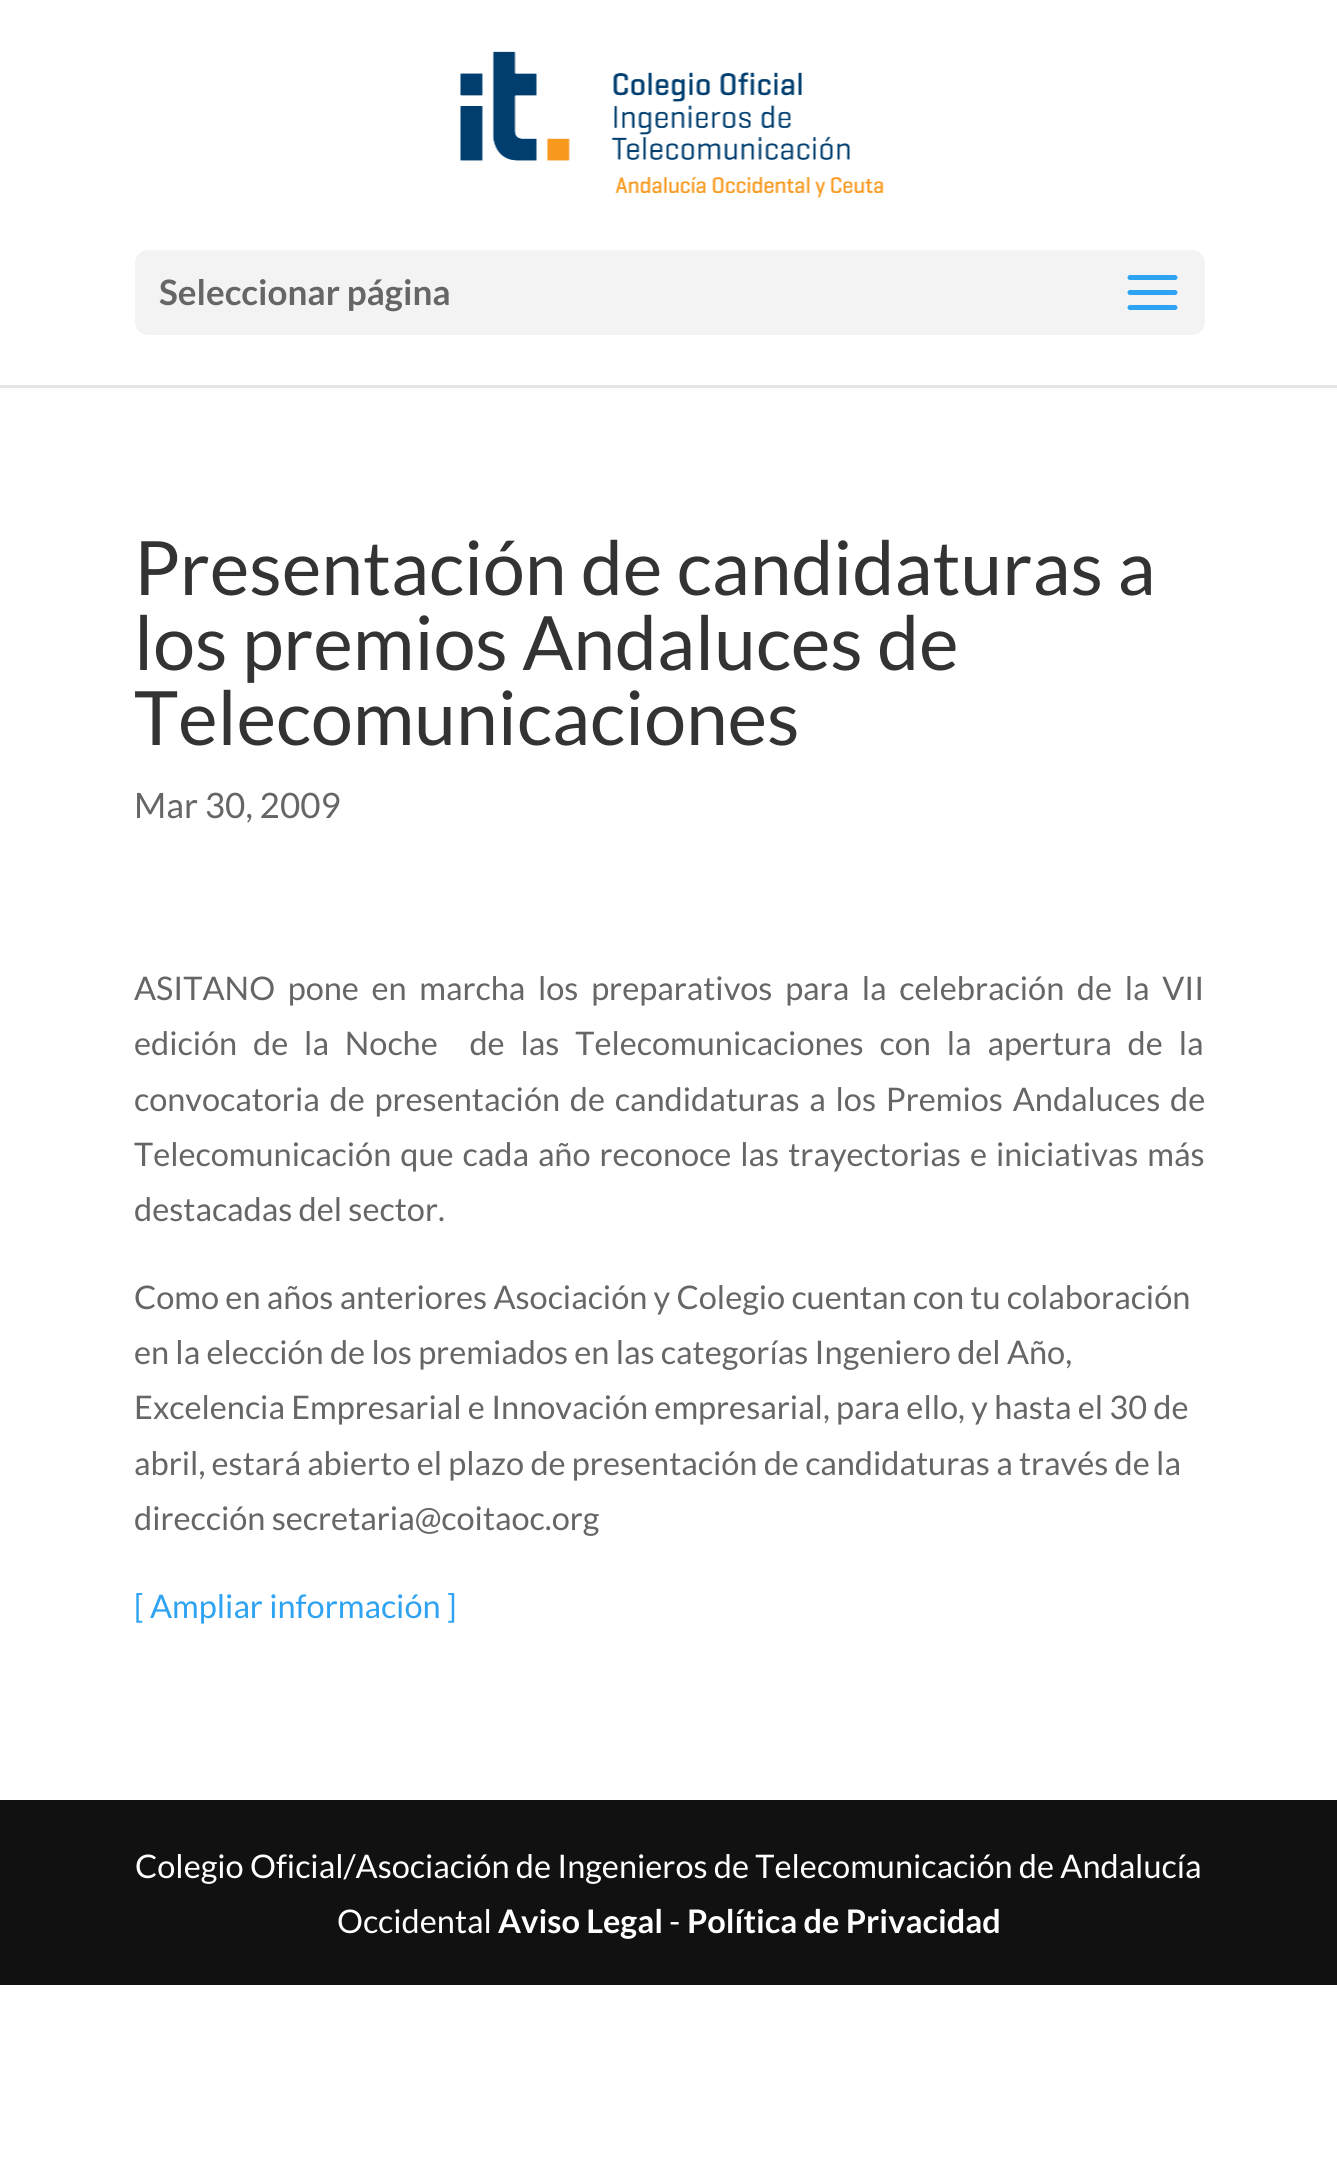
import math
import cairo


def use_color(cr, r, g, b):
  cr.set_source_rgb(r / 255, g / 255, b / 255)

def text(cr, x, y, s, family, size, color, bold=False, italic=False):
  cr.select_font_face(family, cairo.FONT_SLANT_ITALIC if italic else cairo.FONT_SLANT_NORMAL, cairo.FONT_WEIGHT_BOLD if bold else cairo.FONT_WEIGHT_NORMAL)
  cr.set_font_size(size)
  use_color(cr, *color)
  cr.move_to(x, y)
  cr.show_text(s)

def spaced_text(cr, x, y, s, letter, word):
  cr.move_to(x, y)
  for ch in s:
    cr.show_text(ch)
    cr.rel_move_to(letter + word * (ch == ' '), 0)

def box(cr, x, y, w, h, *color):
  use_color(cr, *color)
  cr.rectangle(x, y, w, h)
  cr.fill()

def round_rect(cr, x, y, w, h, r):
  cr.new_sub_path()
  for i, (u, v) in enumerate([(x + w - r, y + h - r), (x + r, y + h - r), (x + r, y + r), (x + w - r, y + r)]):
    cr.arc(u, v, r, i * math.pi / 2, (i + 1) * math.pi / 2)
  cr.close_path()

def picture(cr, path, x, y, w, h):
  cr.save()
  cr.set_source_surface(cairo.ImageSurface.create_from_png(path), x, y)
  cr.rectangle(x, y, w, h)
  cr.fill()
  cr.restore()

def draw(cr):
  use_color(cr, 255, 255, 255)
  cr.paint()
  use_color(cr, 230, 230, 230)
  cr.new_path()
  cr.move_to(0, 385)
  cr.line_to(0, 388)
  cr.line_to(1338, 388)
  cr.line_to(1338, 3)
  cr.line_to(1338, 385)
  cr.close_path()
  cr.fill()
  picture(cr, "img_01.png", 460, 51, 424, 147)
  use_color(cr, 243, 243, 243)
  round_rect(cr, 135, 250, 1070, 85, 13)
  cr.fill()
  picture(cr, "img_02.png", 1127, 275, 51, 35)
  box(cr, 0, 1800, 1337, 185, 17, 17, 17)
  text(cr, 159, 305, "Seleccionar página", "Lato", 35, (102, 102, 102), bold=True)
  text(cr, 134, 595, "Presentación de candidaturas a", "Lato", 75, (51, 51, 51))
  text(cr, 134, 670, "los premios Andaluces de", "Lato", 75, (51, 51, 51))
  text(cr, 134, 745, "Telecomunicaciones", "Lato", 75, (51, 51, 51))
  text(cr, 134, 818, "Mar 30, 2009", "Lato", 35, (102, 102, 102))
  cr.set_font_size(32.5)
  spaced_text(cr, 134, 1000, "ASITANO pone en marcha los preparativos para la celebración de la VII", 0, 6.4)
  spaced_text(cr, 134, 1055, "edición de la Noche  de las Telecomunicaciones con la apertura de la", 0, 9.6)
  spaced_text(cr, 134, 1111, "convocatoria de presentación de candidaturas a los Premios Andaluces de", 0, 3.5)
  spaced_text(cr, 134, 1166, "Telecomunicación que cada año reconoce las trayectorias e iniciativas más", 0, 2.75)
  text(cr, 134, 1221, "destacadas del sector.", "Lato", 32.5, (102, 102, 102))
  text(cr, 134, 1309, "Como en años anteriores Asociación y Colegio cuentan con tu colaboración", "Lato", 32.5, (102, 102, 102))
  text(cr, 134, 1364, "en la elección de los premiados en las categorías Ingeniero del Año,", "Lato", 32.5, (102, 102, 102))
  text(cr, 134, 1419, "Excelencia Empresarial e Innovación empresarial, para ello, y hasta el 30 de", "Lato", 32.5, (102, 102, 102))
  text(cr, 134, 1475, "abril, estará abierto el plazo de presentación de candidaturas a través de la", "Lato", 32.5, (102, 102, 102))
  text(cr, 134, 1530, "dirección secretaria@coitaoc.org", "Lato", 32.5, (102, 102, 102))
  text(cr, 134, 1618, "[ Ampliar información ]", "Lato", 32.5, (46, 163, 242))
  text(cr, 135, 1878, "Colegio Oficial/Asociación de Ingenieros de Telecomunicación de Andalucía", "Lato", 32.5, (255, 255, 255))
  text(cr, 337, 1933, "Occidental", "Lato", 32.5, (255, 255, 255))
  text(cr, 498, 1933, "Aviso Legal", "Lato", 32.5, (255, 255, 255), bold=True)
  text(cr, 669, 1933, "-", "Lato", 32.5, (255, 255, 255))
  text(cr, 687, 1933, "Política de Privacidad", "Lato", 32.5, (255, 255, 255), bold=True)


surface = cairo.ImageSurface(cairo.FORMAT_RGB24, 1337, 2172)
cr = cairo.Context(surface)
options = cairo.FontOptions()
options.set_hint_metrics(cairo.HINT_METRICS_OFF)
options.set_hint_style(cairo.HINT_STYLE_NONE)
cr.set_font_options(options)
cr.set_miter_limit(4)
draw(cr)
surface.write_to_png("out.png")
